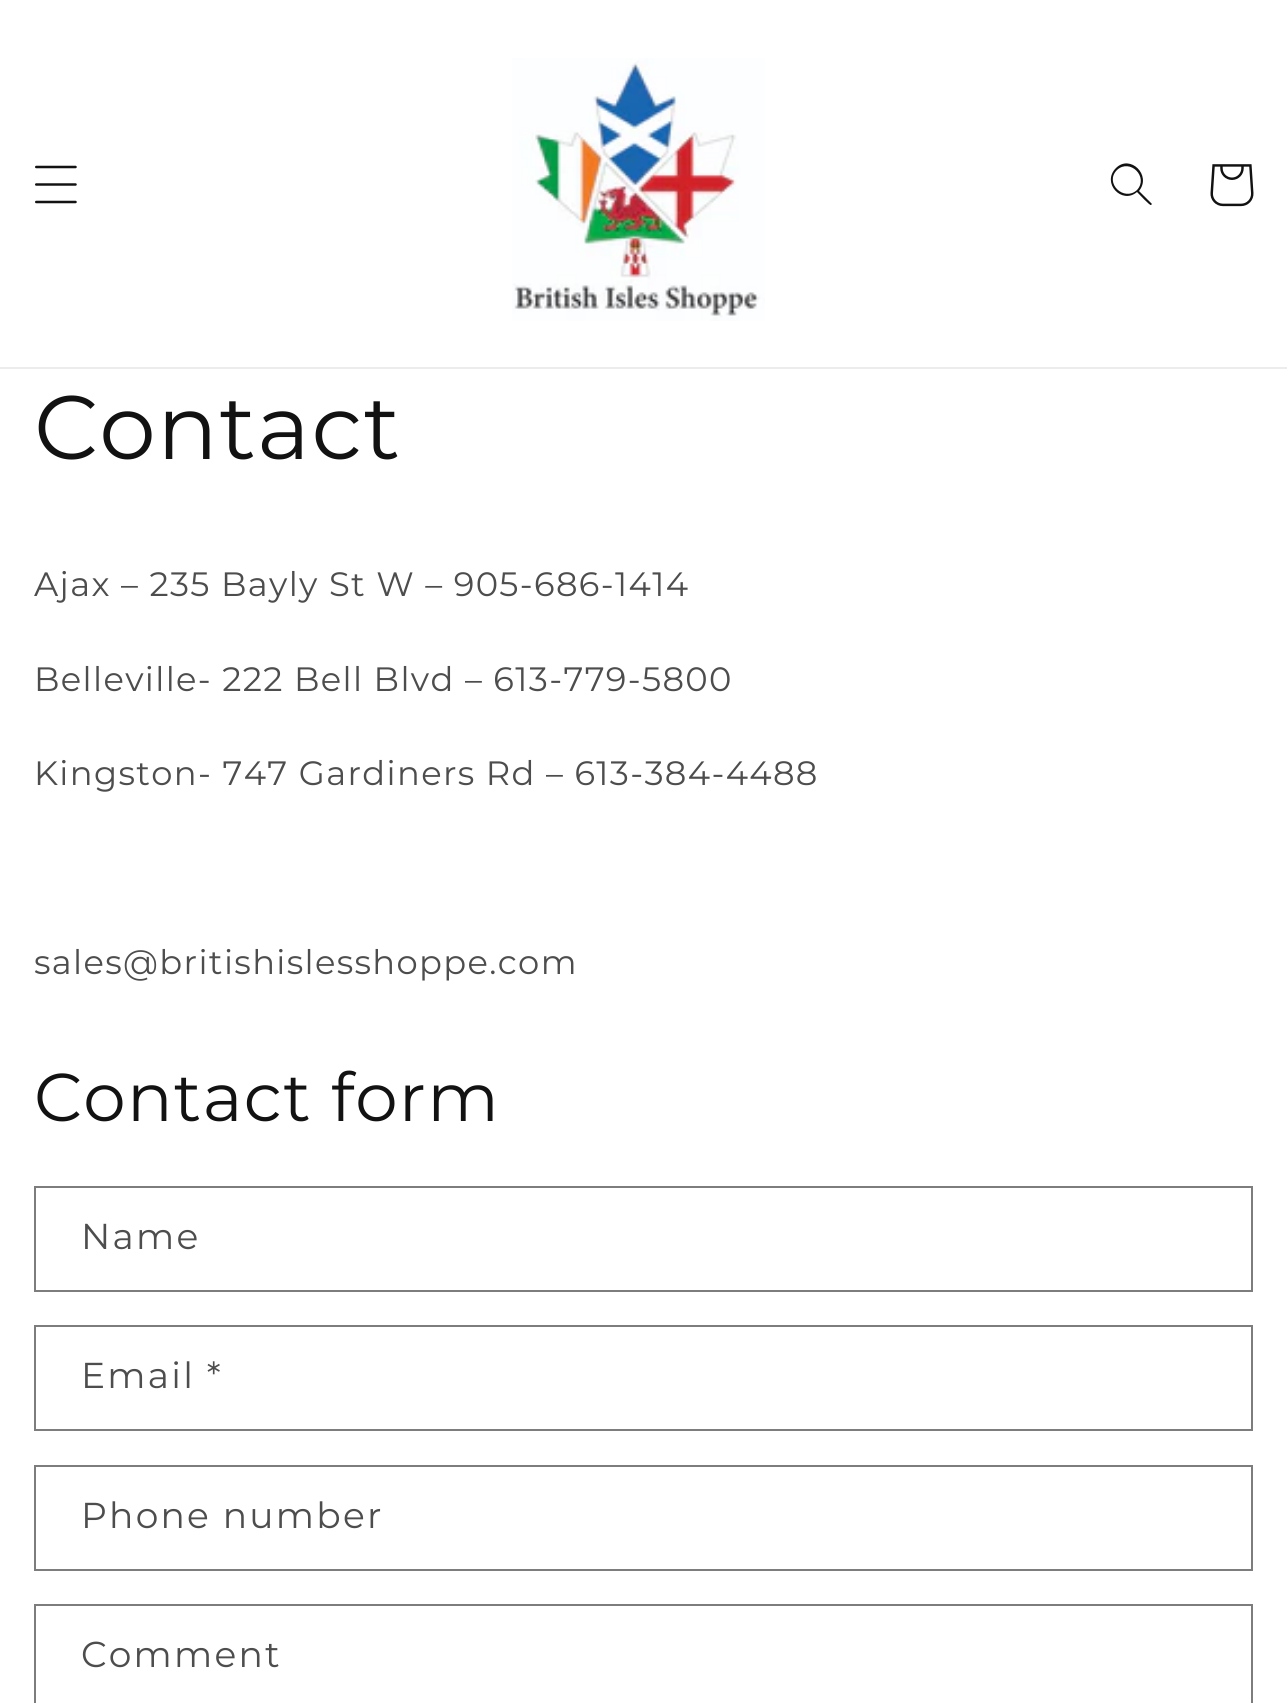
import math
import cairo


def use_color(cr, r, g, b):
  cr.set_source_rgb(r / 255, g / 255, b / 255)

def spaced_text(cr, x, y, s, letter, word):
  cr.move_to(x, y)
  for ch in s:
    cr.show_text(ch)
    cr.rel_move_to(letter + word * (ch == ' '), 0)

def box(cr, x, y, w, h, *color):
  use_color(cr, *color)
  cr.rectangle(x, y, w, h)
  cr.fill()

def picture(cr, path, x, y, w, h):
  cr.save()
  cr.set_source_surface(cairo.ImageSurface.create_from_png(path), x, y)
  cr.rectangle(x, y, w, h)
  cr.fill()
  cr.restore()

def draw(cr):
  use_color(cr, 255, 255, 255)
  cr.paint()
  box(cr, 0, 367, 1287, 2, 236, 236, 236)
  picture(cr, "img_01.png", 35, 165, 42, 39)
  picture(cr, "img_02.png", 512, 58, 253, 263)
  use_color(cr, 18, 18, 18)
  cr.set_fill_rule(cairo.FILL_RULE_EVEN_ODD)
  cr.new_path()
  cr.move_to(1137, 190)
  cr.curve_to(1124, 202, 1104, 183, 1117, 170)
  cr.curve_to(1130, 158, 1149, 177, 1137, 190)
  cr.close_path()
  cr.move_to(1137, 192)
  cr.curve_to(1122, 205, 1101, 183, 1116, 168)
  cr.curve_to(1130, 154, 1152, 175, 1139, 191)
  cr.line_to(1152, 204)
  cr.line_to(1151, 205)
  cr.curve_to(1150, 206, 1139, 194, 1137, 192)
  cr.close_path()
  cr.fill()
  picture(cr, "img_03.png", 1210, 164, 44, 43)
  cr.rectangle(35, 1187, 1217, 104)
  use_color(cr, 125, 125, 125)
  cr.stroke()
  cr.rectangle(35, 1326, 1217, 104)
  cr.stroke()
  cr.rectangle(35, 1466, 1217, 104)
  cr.stroke()
  cr.rectangle(35, 1605, 1217, 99)
  cr.stroke()
  cr.select_font_face("Montserrat")
  cr.set_font_size(90)
  use_color(cr, 18, 18, 18)
  spaced_text(cr, 34, 459, "Contact", 1.35, 0)
  cr.set_font_size(33.75)
  use_color(cr, 77, 77, 77)
  spaced_text(cr, 34, 596, "Ajax – 235 Bayly St W – 905-686-1414", 1.35, 0)
  spaced_text(cr, 34, 691, "Belleville- 222 Bell Blvd – 613-779-5800", 1.35, 0)
  spaced_text(cr, 34, 785, "Kingston- 747 Gardiners Rd – 613-384-4488", 1.35, 0)
  spaced_text(cr, 34, 974, "sales@britishislesshoppe.com", 1.35, 0)
  cr.set_font_size(67.5)
  use_color(cr, 18, 18, 18)
  spaced_text(cr, 34, 1121, "Contact form", 1.35, 0)
  cr.set_font_size(36)
  use_color(cr, 77, 77, 77)
  spaced_text(cr, 81, 1249, "Name", 2.25, 0)
  spaced_text(cr, 81, 1388, "Email *", 2.25, 0)
  spaced_text(cr, 81, 1528, "Phone number", 2.25, 0)
  spaced_text(cr, 81, 1667, "Comment", 2.25, 0)


surface = cairo.ImageSurface(cairo.FORMAT_RGB24, 1287, 1703)
cr = cairo.Context(surface)
options = cairo.FontOptions()
options.set_hint_metrics(cairo.HINT_METRICS_OFF)
options.set_hint_style(cairo.HINT_STYLE_NONE)
cr.set_font_options(options)
cr.set_miter_limit(4)
draw(cr)
surface.write_to_png("out.png")
